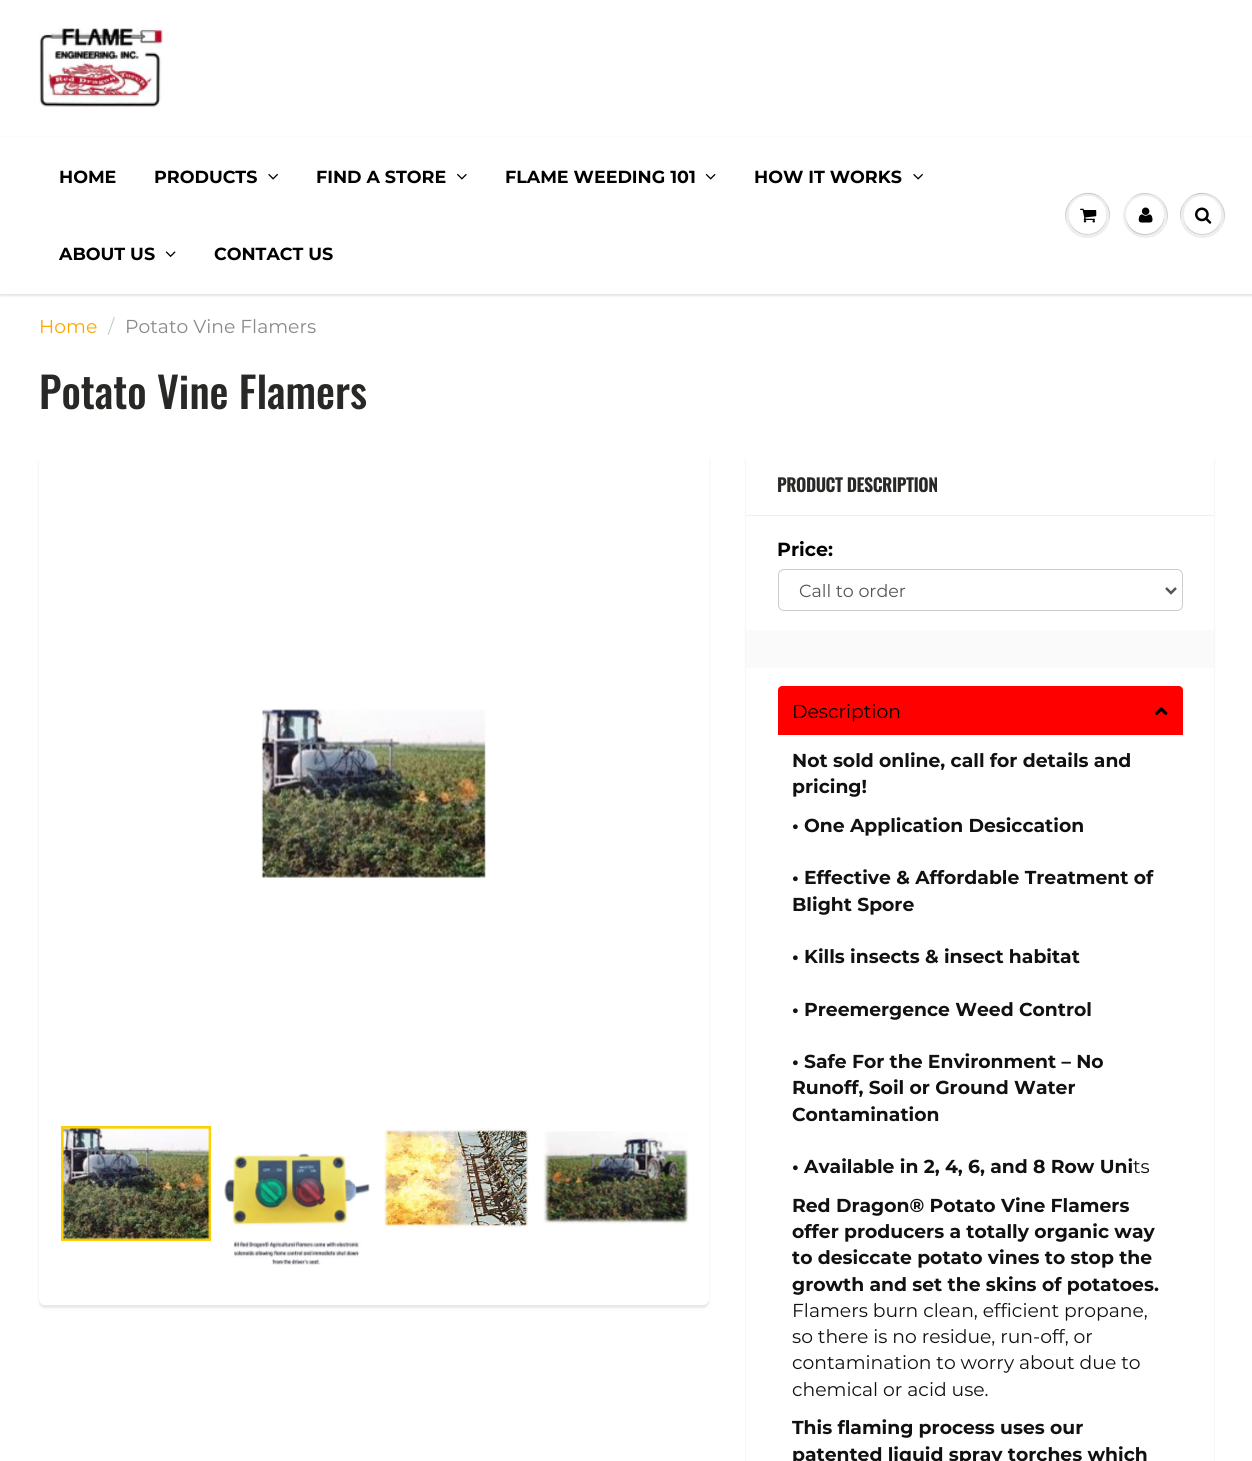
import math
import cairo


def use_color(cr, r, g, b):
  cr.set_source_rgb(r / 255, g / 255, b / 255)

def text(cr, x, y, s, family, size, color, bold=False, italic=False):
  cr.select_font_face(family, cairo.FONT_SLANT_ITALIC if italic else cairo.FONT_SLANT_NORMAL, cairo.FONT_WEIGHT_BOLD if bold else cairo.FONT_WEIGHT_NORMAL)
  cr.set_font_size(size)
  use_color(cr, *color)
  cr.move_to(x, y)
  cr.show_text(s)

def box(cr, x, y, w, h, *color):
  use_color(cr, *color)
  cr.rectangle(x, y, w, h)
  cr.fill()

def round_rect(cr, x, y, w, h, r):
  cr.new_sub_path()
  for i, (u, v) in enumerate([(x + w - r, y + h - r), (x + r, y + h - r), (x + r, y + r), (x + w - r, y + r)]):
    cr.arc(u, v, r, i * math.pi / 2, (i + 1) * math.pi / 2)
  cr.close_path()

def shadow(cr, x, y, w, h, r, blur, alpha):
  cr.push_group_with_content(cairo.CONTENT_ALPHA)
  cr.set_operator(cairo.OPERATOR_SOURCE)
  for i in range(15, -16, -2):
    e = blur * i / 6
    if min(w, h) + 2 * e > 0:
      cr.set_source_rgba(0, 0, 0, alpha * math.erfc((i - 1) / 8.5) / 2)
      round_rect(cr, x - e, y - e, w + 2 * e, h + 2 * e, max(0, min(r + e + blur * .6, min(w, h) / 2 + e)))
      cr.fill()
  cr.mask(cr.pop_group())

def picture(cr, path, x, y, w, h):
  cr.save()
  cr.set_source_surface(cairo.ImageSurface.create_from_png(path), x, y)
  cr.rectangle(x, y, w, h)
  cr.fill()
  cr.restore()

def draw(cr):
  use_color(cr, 255, 255, 255)
  cr.paint()
  picture(cr, "img_01.png", 39, 27, 125, 80)
  use_color(cr, 11, 25, 28)
  shadow(cr, 0, 138, 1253, 158, 0, 1, 0.12)
  box(cr, 0, 137, 1252, 157, 255, 255, 255)
  picture(cr, "img_02.png", 268, 173, 10, 7)
  picture(cr, "img_03.png", 457, 173, 10, 7)
  picture(cr, "img_04.png", 705, 173, 11, 7)
  picture(cr, "img_02.png", 913, 173, 10, 7)
  picture(cr, "img_05.png", 165, 251, 11, 6)
  use_color(cr, 237, 239, 239)
  cr.arc(1087.5, 215.5, 22.5, 0, 2 * math.pi)
  cr.fill()
  use_color(cr, 201, 203, 203)
  cr.new_path()
  cr.move_to(1088, 194)
  cr.curve_to(1104, 194, 1111, 208, 1109, 221)
  cr.curve_to(1111, 215, 1110, 208, 1106, 203)
  cr.curve_to(1091, 180, 1057, 200, 1067, 224)
  cr.curve_to(1063, 211, 1070, 194, 1088, 194)
  cr.close_path()
  cr.fill()
  cr.new_path()
  cr.move_to(1069, 219)
  cr.curve_to(1072, 240, 1103, 240, 1106, 219)
  cr.curve_to(1101.5, 238.5, 1073.5, 238.5, 1069, 219)
  cr.close_path()
  cr.fill()
  use_color(cr, 255, 255, 255)
  round_rect(cr, 1069, 196, 37, 38, 18.5)
  cr.fill()
  cr.new_path()
  cr.move_to(1088, 198)
  cr.curve_to(1100, 198, 1106, 207, 1106, 216)
  cr.curve_to(1106.5, 194.5, 1078.5, 188.5, 1070.5, 207.5)
  cr.curve_to(1069, 211, 1068.5, 216, 1069.5, 220)
  cr.curve_to(1068, 209.5, 1074, 198, 1088, 198)
  cr.close_path()
  cr.fill()
  picture(cr, "img_06.png", 1080, 208, 17, 15)
  use_color(cr, 237, 239, 239)
  cr.arc(1145.5, 215.5, 22.5, 0, 2 * math.pi)
  cr.fill()
  use_color(cr, 201, 203, 203)
  cr.new_path()
  cr.move_to(1145, 194)
  cr.curve_to(1163, 194, 1170, 211, 1166, 224)
  cr.curve_to(1175, 202, 1147, 183, 1130, 199)
  cr.curve_to(1134, 196, 1139, 194, 1145, 194)
  cr.close_path()
  cr.fill()
  cr.new_path()
  cr.move_to(1126.5, 212.5)
  cr.curve_to(1125.5, 217.5, 1126.5, 222.5, 1129, 227)
  cr.curve_to(1140.5, 243.5, 1168, 233, 1163.5, 212.5)
  cr.curve_to(1166, 232, 1140.5, 241.5, 1129.5, 225.5)
  cr.curve_to(1127, 222, 1126, 217, 1126.5, 212.5)
  cr.close_path()
  cr.fill()
  use_color(cr, 255, 255, 255)
  cr.arc(1145, 215, 19, 0, 2 * math.pi)
  cr.fill()
  cr.new_path()
  cr.move_to(1145, 198)
  cr.curve_to(1158.5, 198, 1164.5, 209, 1163.5, 219)
  cr.curve_to(1164.5, 214, 1163.5, 208.5, 1161, 204.5)
  cr.curve_to(1149, 187, 1122.5, 199, 1126.5, 219)
  cr.curve_to(1125.5, 209, 1131.5, 198, 1145, 198)
  cr.close_path()
  cr.fill()
  picture(cr, "img_07.png", 1138, 207, 15, 16)
  use_color(cr, 237, 239, 239)
  cr.arc(1202.5, 215.5, 22.5, 0, 2 * math.pi)
  cr.fill()
  use_color(cr, 201, 203, 203)
  cr.new_path()
  cr.move_to(1202, 194)
  cr.curve_to(1220, 194, 1227, 211, 1223, 224)
  cr.curve_to(1233, 200, 1199, 180, 1184, 203)
  cr.curve_to(1180, 208, 1179, 215, 1181, 221)
  cr.curve_to(1179, 208, 1186, 194, 1202, 194)
  cr.close_path()
  cr.fill()
  cr.new_path()
  cr.move_to(1184, 219)
  cr.curve_to(1187, 240, 1218, 240, 1221, 219)
  cr.curve_to(1216.5, 238.5, 1188.5, 238.5, 1184, 219)
  cr.close_path()
  cr.fill()
  use_color(cr, 255, 255, 255)
  round_rect(cr, 1184, 196, 37, 38, 18.5)
  cr.fill()
  cr.new_path()
  cr.move_to(1202, 198)
  cr.curve_to(1216, 198, 1222, 209.5, 1220.5, 220)
  cr.curve_to(1221.5, 216, 1221, 211, 1219.5, 207.5)
  cr.curve_to(1211.5, 188.5, 1183.5, 194.5, 1184, 216)
  cr.curve_to(1184, 207, 1190, 198, 1202, 198)
  cr.close_path()
  cr.fill()
  picture(cr, "img_08.png", 1195, 207, 17, 17)
  use_color(cr, 11, 25, 28)
  shadow(cr, 39, 455, 670, 853, 6, 1, 0.1)
  use_color(cr, 255, 255, 255)
  round_rect(cr, 39, 453, 670, 852, 6)
  cr.fill()
  picture(cr, "img_09.png", 261, 709, 225, 169)
  cr.rectangle(62.5, 1127.5, 147, 112)
  use_color(cr, 251, 207, 0)
  cr.set_line_width(3)
  cr.stroke()
  picture(cr, "img_10.png", 63, 1128, 147, 112)
  picture(cr, "img_11.png", 224, 1153, 146, 112)
  picture(cr, "img_12.png", 383, 1128, 147, 100)
  picture(cr, "img_13.png", 543, 1131, 146, 94)
  use_color(cr, 11, 25, 28)
  shadow(cr, 746, 455, 468, 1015, 6, 1, 0.1)
  use_color(cr, 255, 255, 255)
  round_rect(cr, 746, 453, 468, 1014, 6)
  cr.fill()
  box(cr, 746, 515, 468, 1, 239, 239, 239)
  round_rect(cr, 778.5, 569.5, 404, 41, 5.5)
  use_color(cr, 204, 204, 204)
  cr.set_line_width(1)
  cr.stroke()
  cr.new_path()
  cr.move_to(1166, 588)
  cr.line_to(1171, 593)
  cr.line_to(1176, 588)
  use_color(cr, 85, 85, 85)
  cr.set_line_width(2.5)
  cr.stroke()
  box(cr, 746, 630, 468, 38, 250, 250, 250)
  use_color(cr, 255, 0, 0)
  cr.new_path()
  cr.move_to(782, 686)
  cr.line_to(1179, 686)
  cr.curve_to(1181, 686, 1183, 688, 1183, 690)
  cr.line_to(1183, 735)
  cr.line_to(778, 735)
  cr.line_to(778, 690)
  cr.curve_to(778, 688, 780, 686, 782, 686)
  cr.close_path()
  cr.fill()
  picture(cr, "img_14.png", 1155, 707, 13, 9)
  text(cr, 59, 183, "HOME", "Montserrat", 17.5, (0, 0, 0), bold=True)
  text(cr, 154, 183, "PRODUCTS", "Montserrat", 17.5, (0, 0, 0), bold=True)
  text(cr, 316, 183, "FIND A STORE", "Montserrat", 17.5, (0, 0, 0), bold=True)
  text(cr, 505, 183, "FLAME WEEDING 101", "Montserrat", 17.5, (0, 0, 0), bold=True)
  text(cr, 754, 183, "HOW IT WORKS", "Montserrat", 17.5, (0, 0, 0), bold=True)
  text(cr, 59, 260, "ABOUT US", "Montserrat", 17.5, (0, 0, 0), bold=True)
  text(cr, 214, 260, "CONTACT US", "Montserrat", 17.5, (0, 0, 0), bold=True)
  text(cr, 39, 333, "Home", "Montserrat", 18.75, (255, 165, 0))
  text(cr, 108, 333, "/", "Montserrat", 18.75, (204, 204, 204))
  text(cr, 125, 333, "Potato Vine Flamers", "Montserrat", 18.75, (137, 137, 137))
  text(cr, 39, 409, "Potato Vine Flamers", "Oswald Medium", 42.5, (40, 40, 39))
  text(cr, 777, 492, "PRODUCT DESCRIPTION", "Oswald", 17.5, (40, 40, 39), bold=True)
  text(cr, 777, 556, "Price:", "Montserrat", 19, (0, 0, 0), bold=True)
  text(cr, 799, 597, "Call to order", "Montserrat", 17.5, (85, 85, 85))
  text(cr, 792, 718, "Description", "Montserrat", 18.75, (0, 0, 0))
  text(cr, 792, 767, "Not sold online, call for details and", "Montserrat", 18.75, (17, 17, 17), bold=True)
  text(cr, 792, 793, "pricing!", "Montserrat", 18.75, (17, 17, 17), bold=True)
  text(cr, 792, 832, "• One Application Desiccation", "Montserrat", 18.75, (17, 17, 17), bold=True)
  text(cr, 792, 884, "• Effective & Affordable Treatment of", "Montserrat", 18.75, (17, 17, 17), bold=True)
  text(cr, 792, 911, "Blight Spore", "Montserrat", 18.75, (17, 17, 17), bold=True)
  text(cr, 792, 963, "• Kills insects & insect habitat", "Montserrat", 18.75, (17, 17, 17), bold=True)
  text(cr, 792, 1016, "• Preemergence Weed Control", "Montserrat", 18.75, (17, 17, 17), bold=True)
  text(cr, 792, 1068, "• Safe For the Environment – No", "Montserrat", 18.75, (17, 17, 17), bold=True)
  text(cr, 792, 1094, "Runoff, Soil or Ground Water", "Montserrat", 18.75, (17, 17, 17), bold=True)
  text(cr, 792, 1121, "Contamination", "Montserrat", 18.75, (17, 17, 17), bold=True)
  text(cr, 792, 1173, "• Available in 2, 4, 6, and 8 Row Uni", "Montserrat", 18.75, (17, 17, 17), bold=True)
  text(cr, 1133, 1173, "ts", "Montserrat", 18.75, (17, 17, 17))
  text(cr, 792, 1212, "Red Dragon® Potato Vine Flamers", "Montserrat", 18.75, (17, 17, 17), bold=True)
  text(cr, 792, 1238, "offer producers a totally organic way", "Montserrat", 18.75, (17, 17, 17), bold=True)
  text(cr, 792, 1264, "to desiccate potato vines to stop the", "Montserrat", 18.75, (17, 17, 17), bold=True)
  text(cr, 792, 1291, "growth and set the skins of potatoes.", "Montserrat", 18.75, (17, 17, 17), bold=True)
  text(cr, 792, 1317, "Flamers burn clean, efficient propane,", "Montserrat", 18.75, (17, 17, 17))
  text(cr, 792, 1343, "so there is no residue, run-off, or", "Montserrat", 18.75, (17, 17, 17))
  text(cr, 792, 1369, "contamination to worry about due to", "Montserrat", 18.75, (17, 17, 17))
  text(cr, 792, 1396, "chemical or acid use.", "Montserrat", 18.75, (17, 17, 17))
  text(cr, 792, 1434, "This flaming process uses our", "Montserrat", 18.75, (17, 17, 17), bold=True)
  text(cr, 792, 1461, "patented liquid spray torches which", "Montserrat", 18.75, (17, 17, 17), bold=True)


surface = cairo.ImageSurface(cairo.FORMAT_RGB24, 1252, 1461)
cr = cairo.Context(surface)
options = cairo.FontOptions()
options.set_hint_metrics(cairo.HINT_METRICS_OFF)
options.set_hint_style(cairo.HINT_STYLE_NONE)
cr.set_font_options(options)
cr.set_miter_limit(4)
draw(cr)
surface.write_to_png("out.png")
